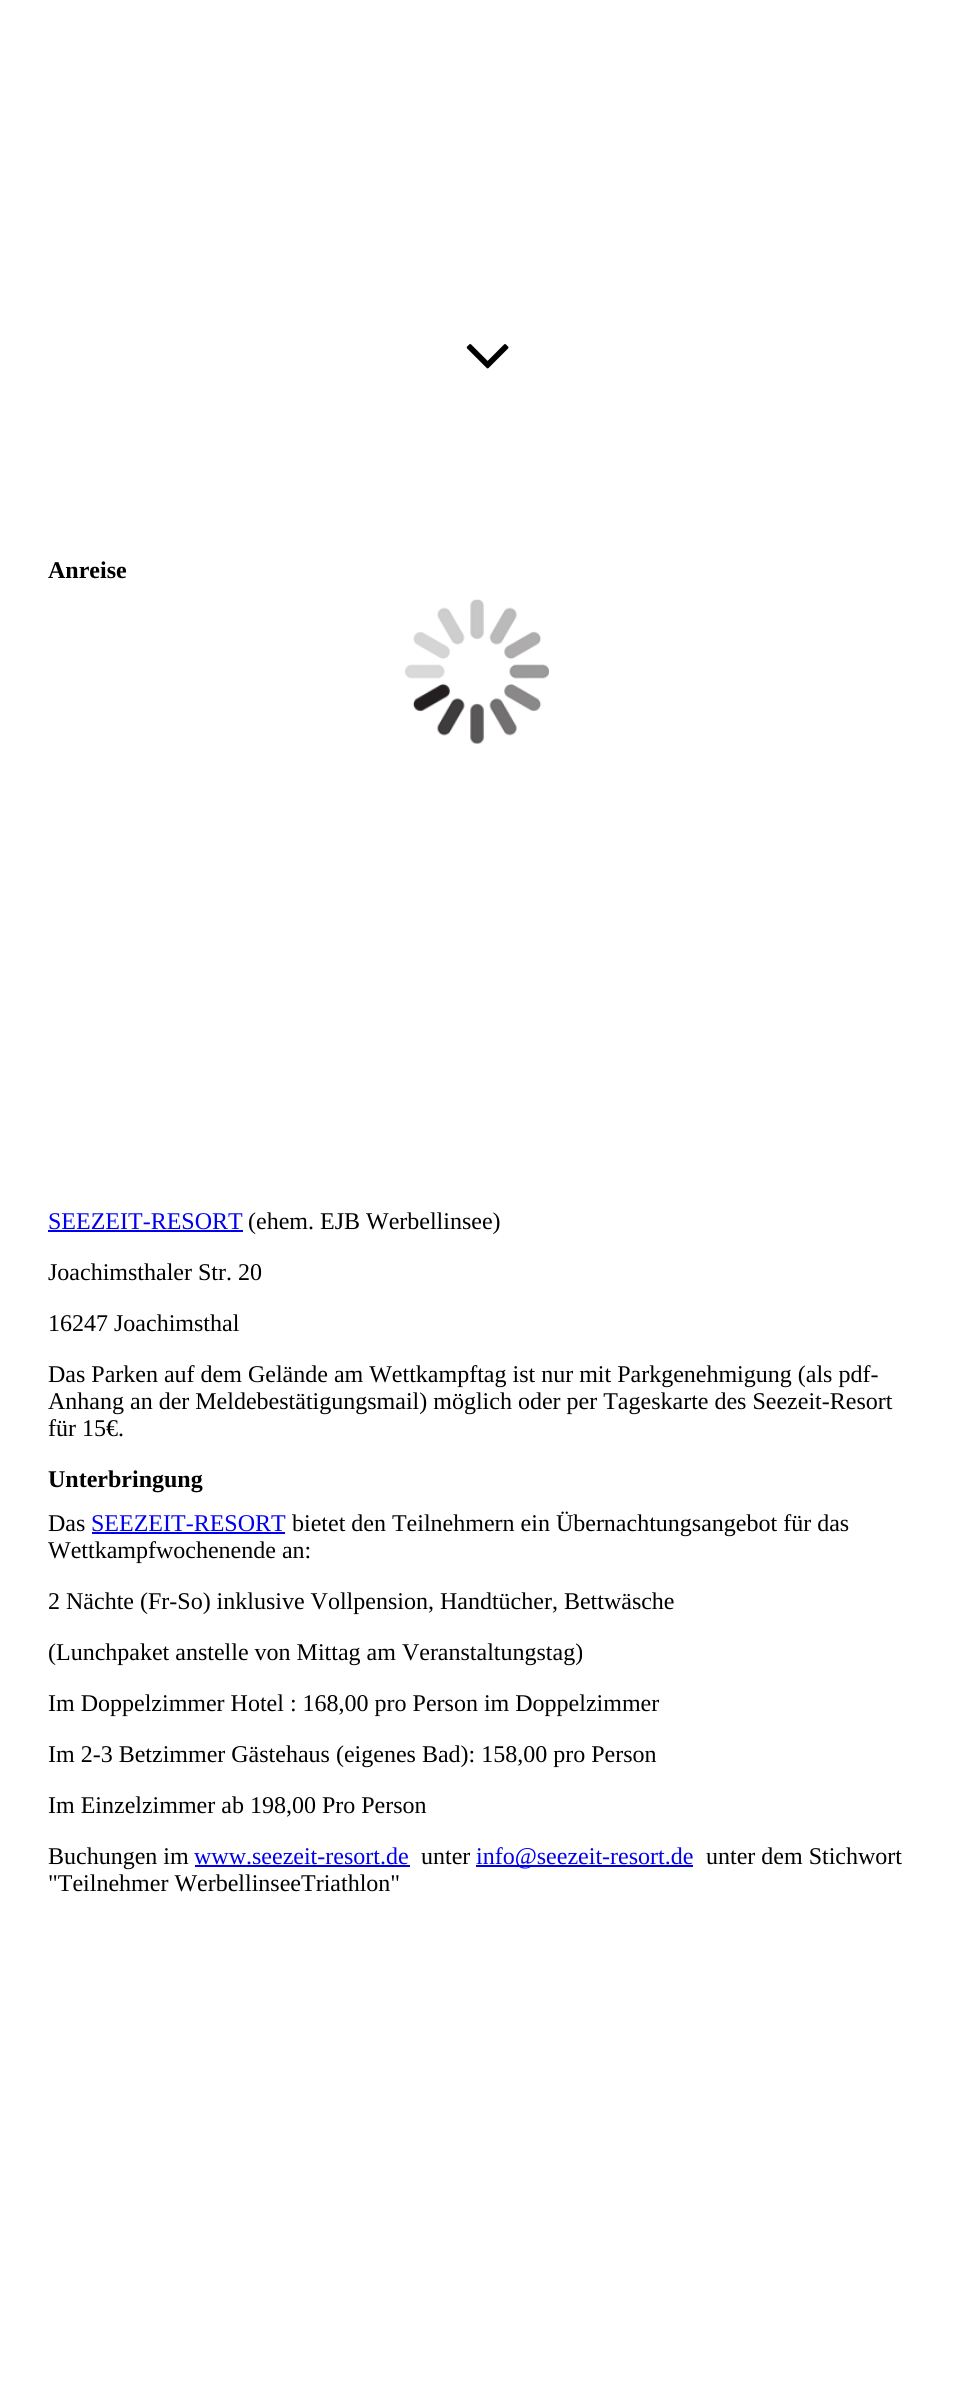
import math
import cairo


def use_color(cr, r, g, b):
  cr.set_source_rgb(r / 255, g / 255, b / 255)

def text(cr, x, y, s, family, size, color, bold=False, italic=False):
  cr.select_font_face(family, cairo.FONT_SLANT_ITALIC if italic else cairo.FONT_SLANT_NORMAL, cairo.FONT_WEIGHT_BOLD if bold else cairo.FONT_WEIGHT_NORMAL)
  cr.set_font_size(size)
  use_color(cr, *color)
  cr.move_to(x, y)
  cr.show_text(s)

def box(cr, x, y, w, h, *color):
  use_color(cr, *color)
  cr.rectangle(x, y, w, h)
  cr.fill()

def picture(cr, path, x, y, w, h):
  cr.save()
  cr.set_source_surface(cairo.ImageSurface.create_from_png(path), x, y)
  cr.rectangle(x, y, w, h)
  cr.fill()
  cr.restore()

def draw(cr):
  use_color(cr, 255, 255, 255)
  cr.paint()
  picture(cr, "img_01.png", 466, 344, 43, 25)
  picture(cr, "img_02.png", 405, 599, 144, 145)
  box(cr, 48, 1230, 195, 2, 0, 0, 238)
  box(cr, 92, 1532, 193, 2, 0, 0, 238)
  box(cr, 195, 1865, 215, 2, 0, 0, 238)
  box(cr, 476, 1865, 217, 2, 0, 0, 238)
  text(cr, 48, 578, "Anreise", "Liberation Serif", 24, (0, 0, 0), bold=True)
  text(cr, 48, 1229, "SEEZEIT-RESORT", "Liberation Serif", 24, (0, 0, 238))
  text(cr, 248, 1229, "(ehem. EJB Werbellinsee)", "Liberation Serif", 24, (0, 0, 0))
  text(cr, 48, 1280, "Joachimsthaler Str. 20", "Liberation Serif", 24, (0, 0, 0))
  text(cr, 48, 1331, "16247 Joachimsthal", "Liberation Serif", 24, (0, 0, 0))
  text(cr, 48, 1382, "Das Parken auf dem Gelände am Wettkampftag ist nur mit Parkgenehmigung (als pdf-", "Liberation Serif", 24, (0, 0, 0))
  text(cr, 48, 1409, "Anhang an der Meldebestätigungsmail) möglich oder per Tageskarte des Seezeit-Resort", "Liberation Serif", 24, (0, 0, 0))
  text(cr, 48, 1436, "für 15€.", "Liberation Serif", 24, (0, 0, 0))
  text(cr, 48, 1487, "Unterbringung", "Liberation Serif", 24, (0, 0, 0), bold=True)
  text(cr, 48, 1531, "Das", "Liberation Serif", 24, (0, 0, 0))
  text(cr, 91, 1531, "SEEZEIT-RESORT", "Liberation Serif", 24, (0, 0, 238))
  text(cr, 292, 1531, "bietet den Teilnehmern ein Übernachtungsangebot für das", "Liberation Serif", 24, (0, 0, 0))
  text(cr, 48, 1558, "Wettkampfwochenende an:", "Liberation Serif", 24, (0, 0, 0))
  text(cr, 48, 1609, "2 Nächte (Fr-So) inklusive Vollpension, Handtücher, Bettwäsche", "Liberation Serif", 24, (0, 0, 0))
  text(cr, 48, 1660, "(Lunchpaket anstelle von Mittag am Veranstaltungstag)", "Liberation Serif", 24, (0, 0, 0))
  text(cr, 48, 1711, "Im Doppelzimmer Hotel : 168,00 pro Person im Doppelzimmer", "Liberation Serif", 24, (0, 0, 0))
  text(cr, 48, 1762, "Im 2-3 Betzimmer Gästehaus (eigenes Bad): 158,00 pro Person", "Liberation Serif", 24, (0, 0, 0))
  text(cr, 48, 1813, "Im Einzelzimmer ab 198,00 Pro Person", "Liberation Serif", 24, (0, 0, 0))
  text(cr, 48, 1864, "Buchungen im", "Liberation Serif", 24, (0, 0, 0))
  text(cr, 194, 1864, "www.seezeit-resort.de", "Liberation Serif", 24, (0, 0, 238))
  text(cr, 421, 1864, "unter", "Liberation Serif", 24, (0, 0, 0))
  text(cr, 476, 1864, "info@seezeit-resort.de", "Liberation Serif", 24, (0, 0, 238))
  text(cr, 706, 1864, "unter dem Stichwort", "Liberation Serif", 24, (0, 0, 0))
  text(cr, 48, 1891, "\"Teilnehmer WerbellinseeTriathlon\"", "Liberation Serif", 24, (0, 0, 0))


surface = cairo.ImageSurface(cairo.FORMAT_RGB24, 954, 2391)
cr = cairo.Context(surface)
options = cairo.FontOptions()
options.set_hint_metrics(cairo.HINT_METRICS_OFF)
options.set_hint_style(cairo.HINT_STYLE_NONE)
cr.set_font_options(options)
cr.set_miter_limit(4)
draw(cr)
surface.write_to_png("out.png")
